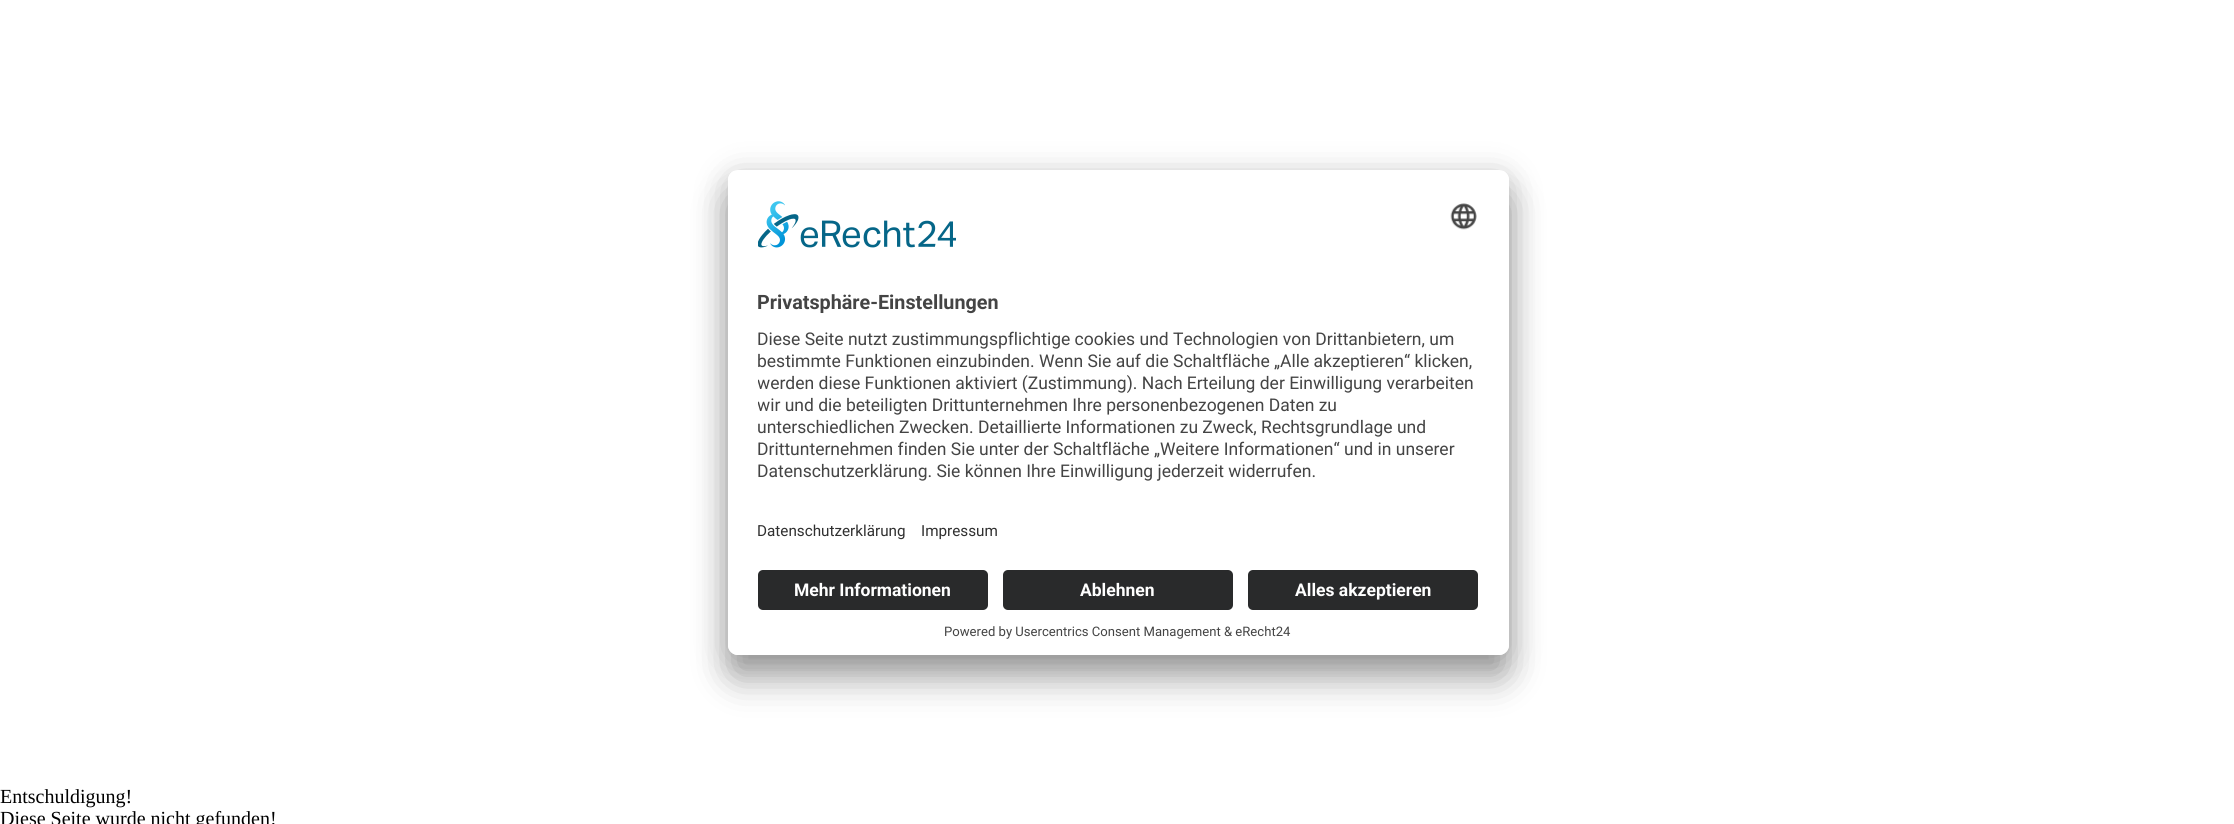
import math
import cairo


def use_color(cr, r, g, b):
  cr.set_source_rgb(r / 255, g / 255, b / 255)

def text(cr, x, y, s, family, size, color, bold=False, italic=False):
  cr.select_font_face(family, cairo.FONT_SLANT_ITALIC if italic else cairo.FONT_SLANT_NORMAL, cairo.FONT_WEIGHT_BOLD if bold else cairo.FONT_WEIGHT_NORMAL)
  cr.set_font_size(size)
  use_color(cr, *color)
  cr.move_to(x, y)
  cr.show_text(s)

def box(cr, x, y, w, h, *color):
  use_color(cr, *color)
  cr.rectangle(x, y, w, h)
  cr.fill()

def round_rect(cr, x, y, w, h, r):
  cr.new_sub_path()
  for i, (u, v) in enumerate([(x + w - r, y + h - r), (x + r, y + h - r), (x + r, y + r), (x + w - r, y + r)]):
    cr.arc(u, v, r, i * math.pi / 2, (i + 1) * math.pi / 2)
  cr.close_path()

def shadow(cr, x, y, w, h, r, blur, alpha):
  cr.push_group_with_content(cairo.CONTENT_ALPHA)
  cr.set_operator(cairo.OPERATOR_SOURCE)
  for i in range(15, -16, -2):
    e = blur * i / 6
    if min(w, h) + 2 * e > 0:
      cr.set_source_rgba(0, 0, 0, alpha * math.erfc((i - 1) / 8.5) / 2)
      round_rect(cr, x - e, y - e, w + 2 * e, h + 2 * e, max(0, min(r + e + blur * .6, min(w, h) / 2 + e)))
      cr.fill()
  cr.mask(cr.pop_group())

def picture(cr, path, x, y, w, h):
  cr.save()
  cr.set_source_surface(cairo.ImageSurface.create_from_png(path), x, y)
  cr.rectangle(x, y, w, h)
  cr.fill()
  cr.restore()

def draw(cr):
  use_color(cr, 255, 255, 255)
  cr.paint()
  use_color(cr, 0, 0, 0)
  shadow(cr, 728, 195, 781, 485, 10, 17.5, 0.3)
  shadow(cr, 728, 176, 781, 485, 10, 16, 0.22)
  use_color(cr, 255, 255, 255)
  round_rect(cr, 728, 170, 781, 485, 10)
  cr.fill()
  cr.save()
  round_rect(cr, 728, 170, 781, 485, 10)
  cr.clip()
  cr.new_path()
  cr.move_to(738, 170)
  cr.line_to(1499, 170)
  cr.curve_to(1504.5, 170, 1509, 174.5, 1509, 180)
  cr.line_to(1509, 560)
  cr.line_to(728, 560)
  cr.line_to(728, 180)
  cr.curve_to(728, 174.5, 732.5, 170, 738, 170)
  cr.close_path()
  cr.clip()
  box(cr, 728, 171, 781, 389, 255, 255, 255)
  cr.restore()
  picture(cr, "img_01.png", 758, 201, 198, 47)
  picture(cr, "img_02.png", 1450, 203, 27, 27)
  cr.new_path()
  cr.move_to(728, 560)
  cr.line_to(1509, 560)
  cr.line_to(1509, 645)
  cr.curve_to(1509, 650.5, 1504.5, 655, 1499, 655)
  cr.line_to(738, 655)
  cr.curve_to(732.5, 655, 728, 650.5, 728, 645)
  cr.close_path()
  cr.fill()
  use_color(cr, 41, 42, 43)
  round_rect(cr, 758, 570, 230, 40, 5)
  cr.fill()
  round_rect(cr, 1003, 570, 230, 40, 5)
  cr.fill()
  round_rect(cr, 1248, 570, 230, 40, 5)
  cr.fill()
  text(cr, 757, 309, "Privatsphäre-Einstellungen", "Roboto", 19.75, (68, 68, 68), bold=True)
  text(cr, 757, 345, "Diese Seite nutzt zustimmungspflichtige cookies und Technologien von Drittanbietern, um", "Roboto", 17.5, (68, 68, 68))
  text(cr, 757, 367, "bestimmte Funktionen einzubinden. Wenn Sie auf die Schaltfläche „Alle akzeptieren“ klicken,", "Roboto", 17.5, (68, 68, 68))
  cr.save()
  cr.rectangle(758, 324, 721, 164)
  cr.clip()
  text(cr, 757, 389, "werden diese Funktionen aktiviert (Zustimmung). Nach Erteilung der Einwilligung verarbeiten", "Roboto", 17.5, (68, 68, 68))
  text(cr, 757, 411, "wir und die beteiligten Drittunternehmen Ihre personenbezogenen Daten zu", "Roboto", 17.5, (68, 68, 68))
  cr.restore()
  text(cr, 757, 433, "unterschiedlichen Zwecken. Detaillierte Informationen zu Zweck, Rechtsgrundlage und", "Roboto", 17.5, (68, 68, 68))
  text(cr, 757, 455, "Drittunternehmen finden Sie unter der Schaltfläche „Weitere Informationen“ und in unserer", "Roboto", 17.5, (68, 68, 68))
  text(cr, 757, 477, "Datenschutzerklärung. Sie können Ihre Einwilligung jederzeit widerrufen.", "Roboto", 17.5, (68, 68, 68))
  text(cr, 757, 536, "Datenschutzerklärung", "Roboto", 15.25, (48, 48, 48))
  text(cr, 921, 536, "Impressum", "Roboto", 15.25, (48, 48, 48))
  text(cr, 794, 596, "Mehr Informationen", "Roboto", 17.5, (255, 255, 255), bold=True)
  text(cr, 1080, 596, "Ablehnen", "Roboto", 17.5, (255, 255, 255), bold=True)
  text(cr, 1295, 596, "Alles akzeptieren", "Roboto", 17.5, (255, 255, 255), bold=True)
  text(cr, 944, 636, "Powered by Usercentrics Consent Management & eRecht24", "Roboto", 13.1, (68, 68, 68))
  text(cr, 0, 803, "Entschuldigung!", "Liberation Serif", 20, (0, 0, 0))
  text(cr, 0, 825, "Diese Seite wurde nicht gefunden!", "Liberation Serif", 20, (0, 0, 0))


surface = cairo.ImageSurface(cairo.FORMAT_RGB24, 2234, 824)
cr = cairo.Context(surface)
options = cairo.FontOptions()
options.set_hint_metrics(cairo.HINT_METRICS_OFF)
options.set_hint_style(cairo.HINT_STYLE_NONE)
cr.set_font_options(options)
cr.set_miter_limit(4)
draw(cr)
surface.write_to_png("out.png")
